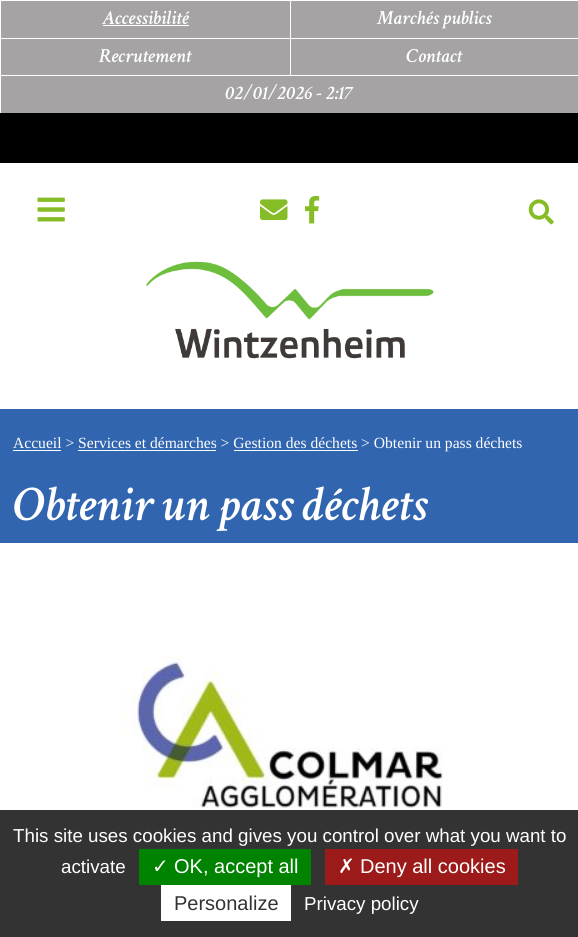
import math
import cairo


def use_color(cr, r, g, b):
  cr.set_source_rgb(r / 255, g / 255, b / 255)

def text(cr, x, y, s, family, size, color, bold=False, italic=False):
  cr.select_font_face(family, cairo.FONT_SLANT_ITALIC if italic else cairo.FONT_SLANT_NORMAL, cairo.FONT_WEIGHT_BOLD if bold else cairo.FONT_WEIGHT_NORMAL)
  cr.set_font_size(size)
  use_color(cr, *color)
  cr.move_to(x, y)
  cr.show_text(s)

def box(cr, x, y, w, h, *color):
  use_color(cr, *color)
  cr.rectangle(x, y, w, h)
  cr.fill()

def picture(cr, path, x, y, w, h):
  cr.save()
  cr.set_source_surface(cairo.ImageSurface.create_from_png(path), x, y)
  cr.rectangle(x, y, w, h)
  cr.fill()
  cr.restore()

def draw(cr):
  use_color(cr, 255, 255, 255)
  cr.paint()
  box(cr, 1, 1, 577, 112, 165, 163, 163)
  box(cr, 103, 25, 86, 1, 255, 255, 255)
  box(cr, 290, 0, 1, 38, 255, 255, 255)
  box(cr, 0, 38, 578, 1, 255, 255, 255)
  box(cr, 290, 38, 1, 37, 255, 255, 255)
  box(cr, 0, 75, 578, 1, 255, 255, 255)
  box(cr, 0, 113, 578, 50, 0, 0, 0)
  picture(cr, "img_01.png", 37, 197, 28, 25)
  picture(cr, "img_02.png", 260, 199, 28, 21)
  picture(cr, "img_03.png", 305, 195, 15, 29)
  picture(cr, "img_04.png", 146, 261, 288, 98)
  picture(cr, "img_05.png", 528, 199, 26, 26)
  box(cr, 0, 409, 578, 134, 49, 101, 175)
  box(cr, 13, 450, 48, 1, 255, 255, 255)
  box(cr, 78, 450, 138, 1, 255, 255, 255)
  box(cr, 234, 450, 124, 1, 255, 255, 255)
  picture(cr, "img_06.png", 122, 654, 321, 154)
  box(cr, 0, 810, 578, 127, 51, 51, 51)
  box(cr, 139, 849, 172, 36, 0, 131, 0)
  box(cr, 325, 849, 193, 36, 156, 26, 26)
  box(cr, 161, 885, 130, 36, 255, 255, 255)
  text(cr, 102, 24, "Accessibilité", "Crimson Text SemiBold", 20, (255, 255, 255), italic=True)
  text(cr, 377, 24, "Marchés publics", "Crimson Text SemiBold", 20, (255, 255, 255), italic=True)
  text(cr, 99, 62, "Recrutement", "Crimson Text SemiBold", 20, (255, 255, 255), italic=True)
  text(cr, 406, 62, "Contact", "Crimson Text SemiBold", 20, (255, 255, 255), italic=True)
  text(cr, 225, 99, "02/01/2026 -", "Crimson Text SemiBold", 20, (255, 255, 255), italic=True)
  text(cr, 326, 99, "2:17", "Crimson Text SemiBold", 20, (255, 255, 255), italic=True)
  text(cr, 13, 448, "Accueil > Services et démarches > Gestion des déchets > Obtenir un pass déchets", "Liberation Serif", 15.6, (255, 255, 255))
  text(cr, 13, 520, "Obtenir un pass déchets", "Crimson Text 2 SemiBold", 50, (255, 255, 255), italic=True)
  text(cr, 13, 842, "This site uses cookies and gives you control over what you want to", "Liberation Sans", 18.75, (255, 255, 255))
  text(cr, 61, 873, "activate", "Liberation Sans", 18.75, (255, 255, 255))
  text(cr, 152, 873, "✓", "DejaVu Sans", 20, (255, 255, 255))
  text(cr, 174, 873, "OK, accept all", "Liberation Sans", 20, (255, 255, 255))
  text(cr, 338, 873, "✗", "DejaVu Sans", 20, (255, 255, 255))
  text(cr, 360, 873, "Deny all cookies", "Liberation Sans", 20, (255, 255, 255))
  text(cr, 174, 910, "Personalize", "Liberation Sans", 20, (51, 51, 51))
  text(cr, 304, 910, "Privacy policy", "Liberation Sans", 18.75, (255, 255, 255))


surface = cairo.ImageSurface(cairo.FORMAT_RGB24, 578, 937)
cr = cairo.Context(surface)
options = cairo.FontOptions()
options.set_hint_metrics(cairo.HINT_METRICS_OFF)
options.set_hint_style(cairo.HINT_STYLE_NONE)
cr.set_font_options(options)
cr.set_miter_limit(4)
draw(cr)
surface.write_to_png("out.png")
